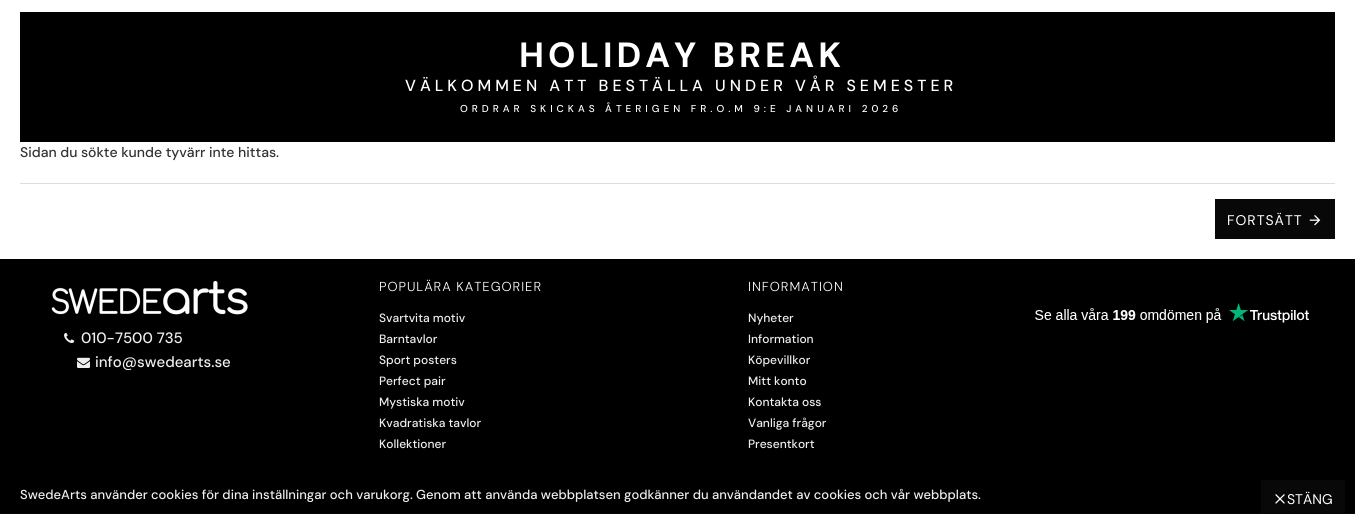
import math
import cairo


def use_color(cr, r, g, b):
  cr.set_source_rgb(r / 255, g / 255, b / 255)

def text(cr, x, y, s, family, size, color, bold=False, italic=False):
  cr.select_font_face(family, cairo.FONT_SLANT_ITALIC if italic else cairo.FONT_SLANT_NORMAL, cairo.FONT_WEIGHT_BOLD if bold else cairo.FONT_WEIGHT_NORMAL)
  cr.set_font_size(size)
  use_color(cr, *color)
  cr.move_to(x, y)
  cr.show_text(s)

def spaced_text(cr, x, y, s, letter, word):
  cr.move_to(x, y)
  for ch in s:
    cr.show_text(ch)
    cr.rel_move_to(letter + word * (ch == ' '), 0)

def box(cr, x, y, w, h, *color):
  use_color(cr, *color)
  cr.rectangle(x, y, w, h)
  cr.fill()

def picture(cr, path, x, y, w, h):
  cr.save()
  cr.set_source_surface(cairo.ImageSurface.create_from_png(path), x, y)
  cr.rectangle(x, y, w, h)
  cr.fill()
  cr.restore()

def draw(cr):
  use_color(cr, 255, 255, 255)
  cr.paint()
  box(cr, 20, 12, 1315, 130, 0, 0, 0)
  box(cr, 20, 183, 1315, 1, 221, 221, 221)
  box(cr, 1215, 199, 120, 40, 8, 8, 8)
  picture(cr, "img_01.png", 1309, 215, 12, 11)
  box(cr, 0, 259, 1355, 254, 0, 0, 0)
  picture(cr, "img_02.png", 1035, 303, 274, 20)
  picture(cr, "img_03.png", 51, 280, 197, 35)
  picture(cr, "img_04.png", 64, 332, 11, 12)
  picture(cr, "img_05.png", 77, 357, 13, 11)
  box(cr, 0, 513, 1355, 1, 6, 6, 6)
  box(cr, 1261, 480, 84, 33, 8, 8, 8)
  picture(cr, "img_06.png", 1275, 494, 10, 10)
  cr.select_font_face("DM Sans", cairo.FONT_SLANT_NORMAL, cairo.FONT_WEIGHT_BOLD)
  cr.set_font_size(35)
  use_color(cr, 255, 255, 255)
  spaced_text(cr, 519, 67, "HOLIDAY BREAK", 4, 0)
  cr.select_font_face("DM Sans Medium")
  cr.set_font_size(16)
  spaced_text(cr, 405, 91, "VÄLKOMMEN ATT BESTÄLLA UNDER VÅR SEMESTER", 4, 0)
  cr.set_font_size(10)
  spaced_text(cr, 460, 112, "ORDRAR SKICKAS ÅTERIGEN FR.O.M 9:E JANUARI 2026", 4, 0)
  text(cr, 20, 157, "Sidan du sökte kunde tyvärr inte hittas.", "DM Sans Medium", 14, (51, 51, 51))
  cr.select_font_face("DM Sans")
  use_color(cr, 255, 255, 255)
  spaced_text(cr, 1227, 225, "FORTSÄTT", 1, 0)
  cr.select_font_face("DM Sans Light")
  cr.set_font_size(13)
  spaced_text(cr, 379, 291, "POPULÄRA KATEGORIER", 1, 0)
  text(cr, 379, 322, "Svartvita motiv", "DM Sans Medium", 12, (238, 238, 238))
  text(cr, 379, 343, "Barntavlor", "DM Sans Medium", 12, (238, 238, 238))
  text(cr, 379, 364, "Sport posters", "DM Sans Medium", 12, (238, 238, 238))
  text(cr, 379, 385, "Perfect pair", "DM Sans Medium", 12, (238, 238, 238))
  text(cr, 379, 406, "Mystiska motiv", "DM Sans Medium", 12, (238, 238, 238))
  text(cr, 379, 427, "Kvadratiska tavlor", "DM Sans Medium", 12, (238, 238, 238))
  text(cr, 379, 448, "Kollektioner", "DM Sans Medium", 12, (238, 238, 238))
  cr.select_font_face("DM Sans Light")
  cr.set_font_size(13)
  use_color(cr, 255, 255, 255)
  spaced_text(cr, 748, 291, "INFORMATION", 1, 0)
  text(cr, 748, 322, "Nyheter", "DM Sans Medium", 12, (238, 238, 238))
  text(cr, 748, 343, "Information", "DM Sans Medium", 12, (238, 238, 238))
  text(cr, 748, 364, "Köpevillkor", "DM Sans Medium", 12, (238, 238, 238))
  text(cr, 748, 385, "Mitt konto", "DM Sans Medium", 12, (238, 238, 238))
  text(cr, 748, 406, "Kontakta oss", "DM Sans Medium", 12, (238, 238, 238))
  text(cr, 748, 427, "Vanliga frågor", "DM Sans Medium", 12, (238, 238, 238))
  text(cr, 748, 448, "Presentkort", "DM Sans Medium", 12, (238, 238, 238))
  text(cr, 81, 343, "010-7500 735", "DM Sans Medium", 15, (238, 238, 238))
  text(cr, 95, 367, "info@swedearts.se", "DM Sans Medium", 15, (238, 238, 238))
  text(cr, 20, 499, "SwedeArts använder cookies för dina inställningar och varukorg. Genom att använda webbplatsen godkänner du användandet av cookies och vår webbplats.", "DM Sans Medium", 13, (238, 238, 238))
  text(cr, 1287, 504, "STÄNG", "DM Sans", 14, (255, 255, 255))


surface = cairo.ImageSurface(cairo.FORMAT_RGB24, 1355, 514)
cr = cairo.Context(surface)
options = cairo.FontOptions()
options.set_hint_metrics(cairo.HINT_METRICS_OFF)
options.set_hint_style(cairo.HINT_STYLE_NONE)
cr.set_font_options(options)
cr.set_miter_limit(4)
draw(cr)
surface.write_to_png("out.png")
